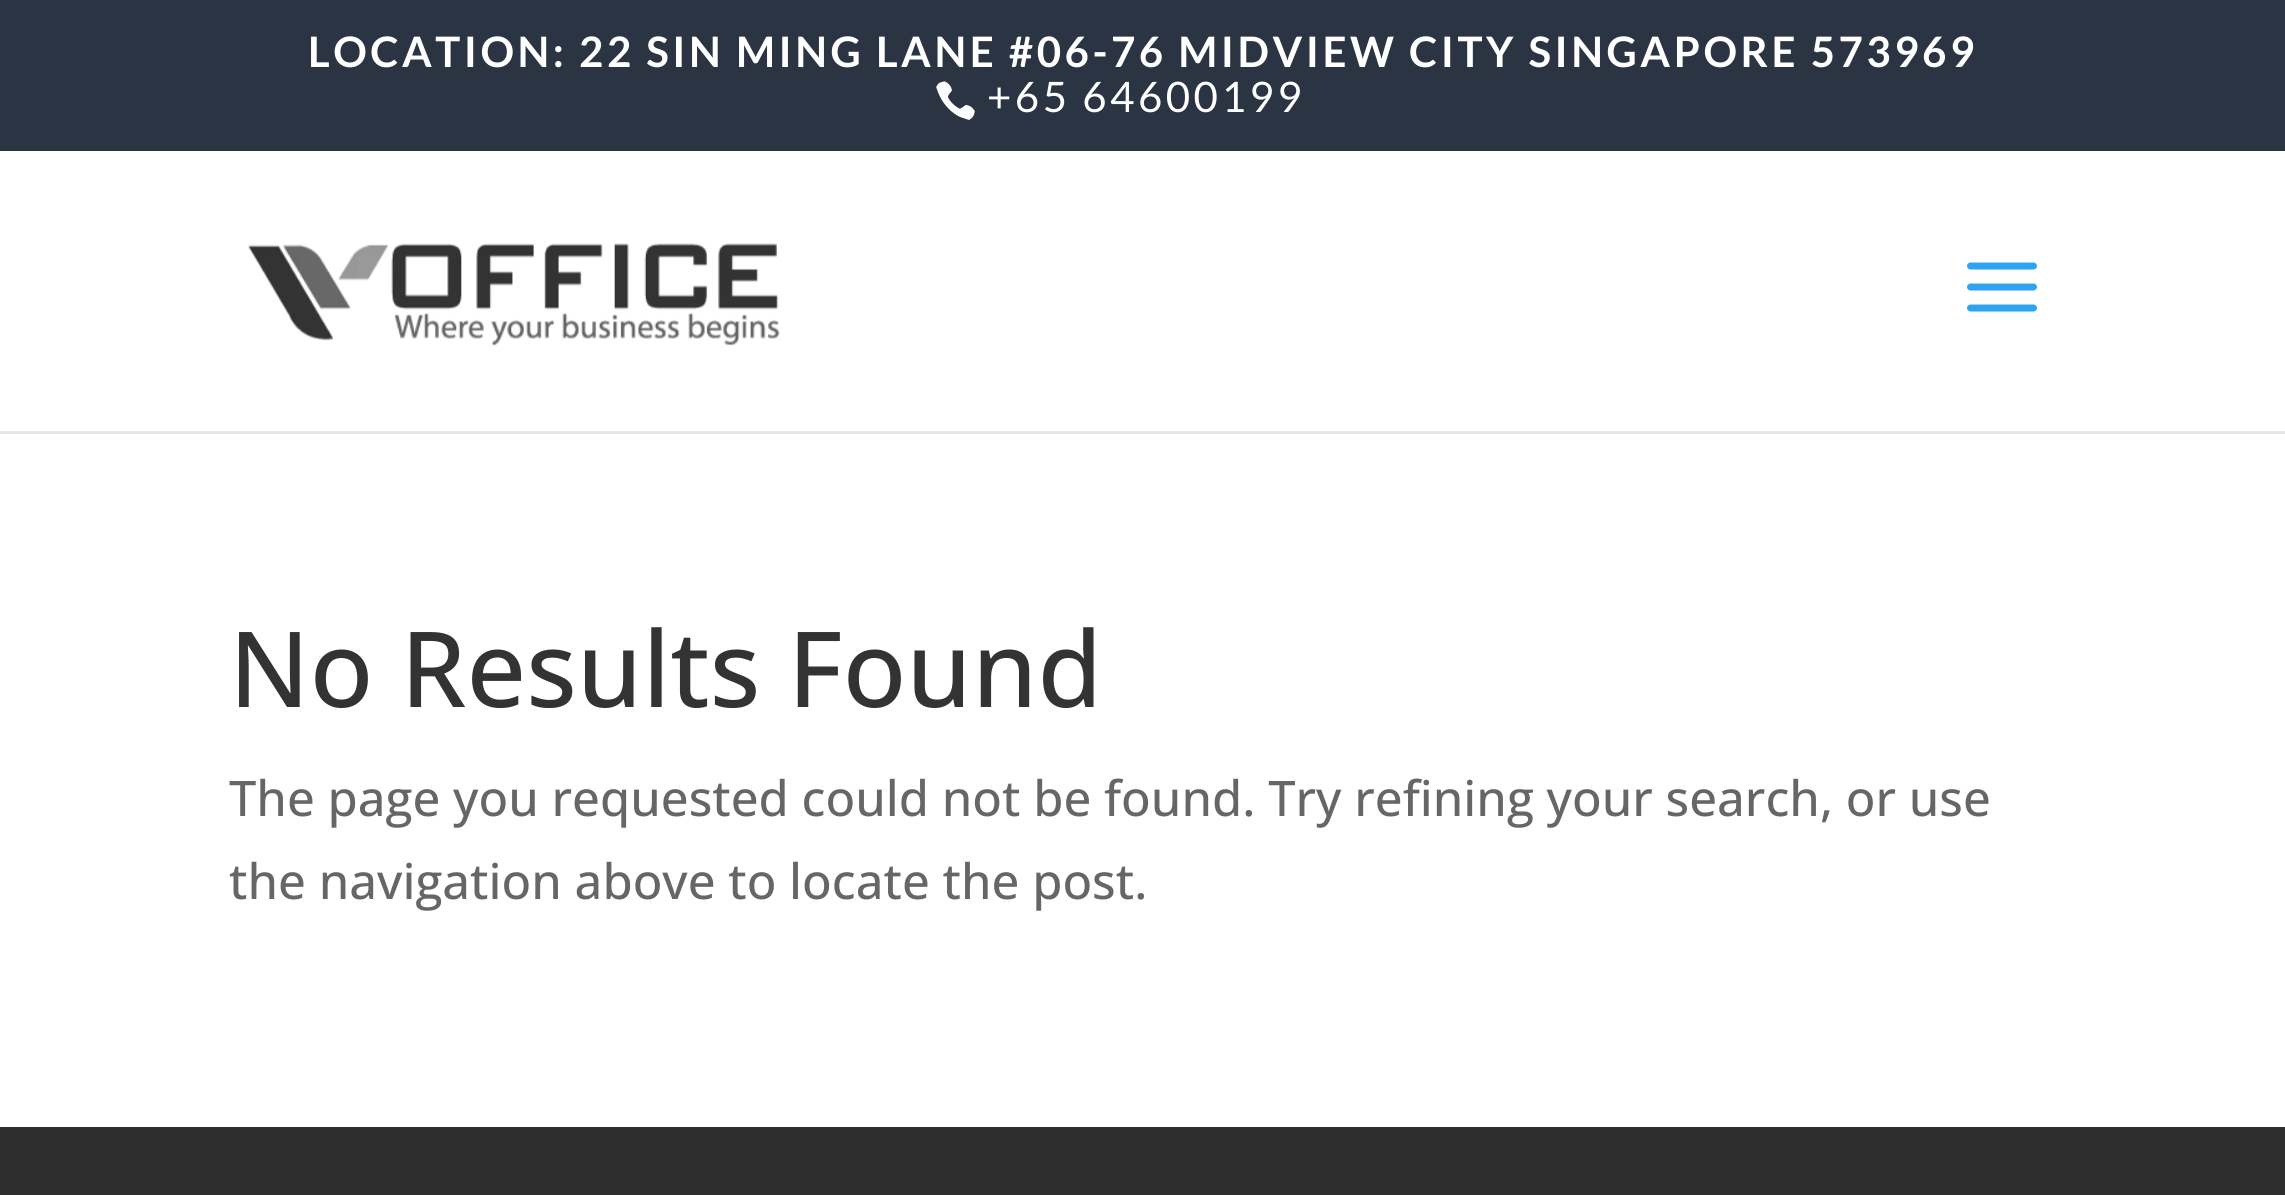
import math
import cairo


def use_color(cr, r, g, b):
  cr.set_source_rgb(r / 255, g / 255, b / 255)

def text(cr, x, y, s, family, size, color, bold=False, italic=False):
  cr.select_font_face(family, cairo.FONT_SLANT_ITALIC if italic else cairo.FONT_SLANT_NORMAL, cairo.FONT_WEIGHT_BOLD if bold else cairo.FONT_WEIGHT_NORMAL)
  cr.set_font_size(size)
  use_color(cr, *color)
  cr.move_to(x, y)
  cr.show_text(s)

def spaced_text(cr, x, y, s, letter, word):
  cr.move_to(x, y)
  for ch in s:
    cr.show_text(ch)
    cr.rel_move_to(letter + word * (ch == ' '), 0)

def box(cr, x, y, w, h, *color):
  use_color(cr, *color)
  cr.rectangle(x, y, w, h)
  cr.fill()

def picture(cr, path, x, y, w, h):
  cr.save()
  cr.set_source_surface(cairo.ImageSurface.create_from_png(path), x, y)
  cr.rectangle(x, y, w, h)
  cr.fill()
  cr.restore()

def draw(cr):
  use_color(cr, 255, 255, 255)
  cr.paint()
  box(cr, 0, 0, 2285, 151, 42, 52, 67)
  picture(cr, "img_01.png", 936, 81, 39, 39)
  use_color(cr, 230, 230, 230)
  cr.new_path()
  cr.move_to(0, 430)
  cr.line_to(0, 434)
  cr.line_to(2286, 434)
  cr.line_to(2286, 154)
  cr.line_to(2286, 430)
  cr.close_path()
  cr.fill()
  box(cr, 0, 430, 2285, 1, 255, 255, 255)
  picture(cr, "img_02.png", 248, 243, 532, 103)
  picture(cr, "img_03.png", 1967, 262, 70, 50)
  box(cr, 0, 1127, 2285, 68, 45, 45, 45)
  cr.select_font_face("Lato", cairo.FONT_SLANT_NORMAL, cairo.FONT_WEIGHT_BOLD)
  cr.set_font_size(42)
  use_color(cr, 255, 255, 255)
  spaced_text(cr, 308, 67, "LOCATION: 22 SIN MING LANE #06-76 MIDVIEW CITY SINGAPORE 573969", 3.5, 0)
  cr.select_font_face("Lato")
  spaced_text(cr, 987, 112, "+65 64600199", 3.5, 0)
  text(cr, 229, 707, "No Results Found", "Open Sans Medium", 105, (51, 51, 51))
  text(cr, 229, 816, "The page you requested could not be found. Try refining your search, or use", "Open Sans Medium", 49, (102, 102, 102))
  text(cr, 229, 899, "the navigation above to locate the post.", "Open Sans Medium", 49, (102, 102, 102))


surface = cairo.ImageSurface(cairo.FORMAT_RGB24, 2285, 1195)
cr = cairo.Context(surface)
options = cairo.FontOptions()
options.set_hint_metrics(cairo.HINT_METRICS_OFF)
options.set_hint_style(cairo.HINT_STYLE_NONE)
cr.set_font_options(options)
cr.set_miter_limit(4)
draw(cr)
surface.write_to_png("out.png")
